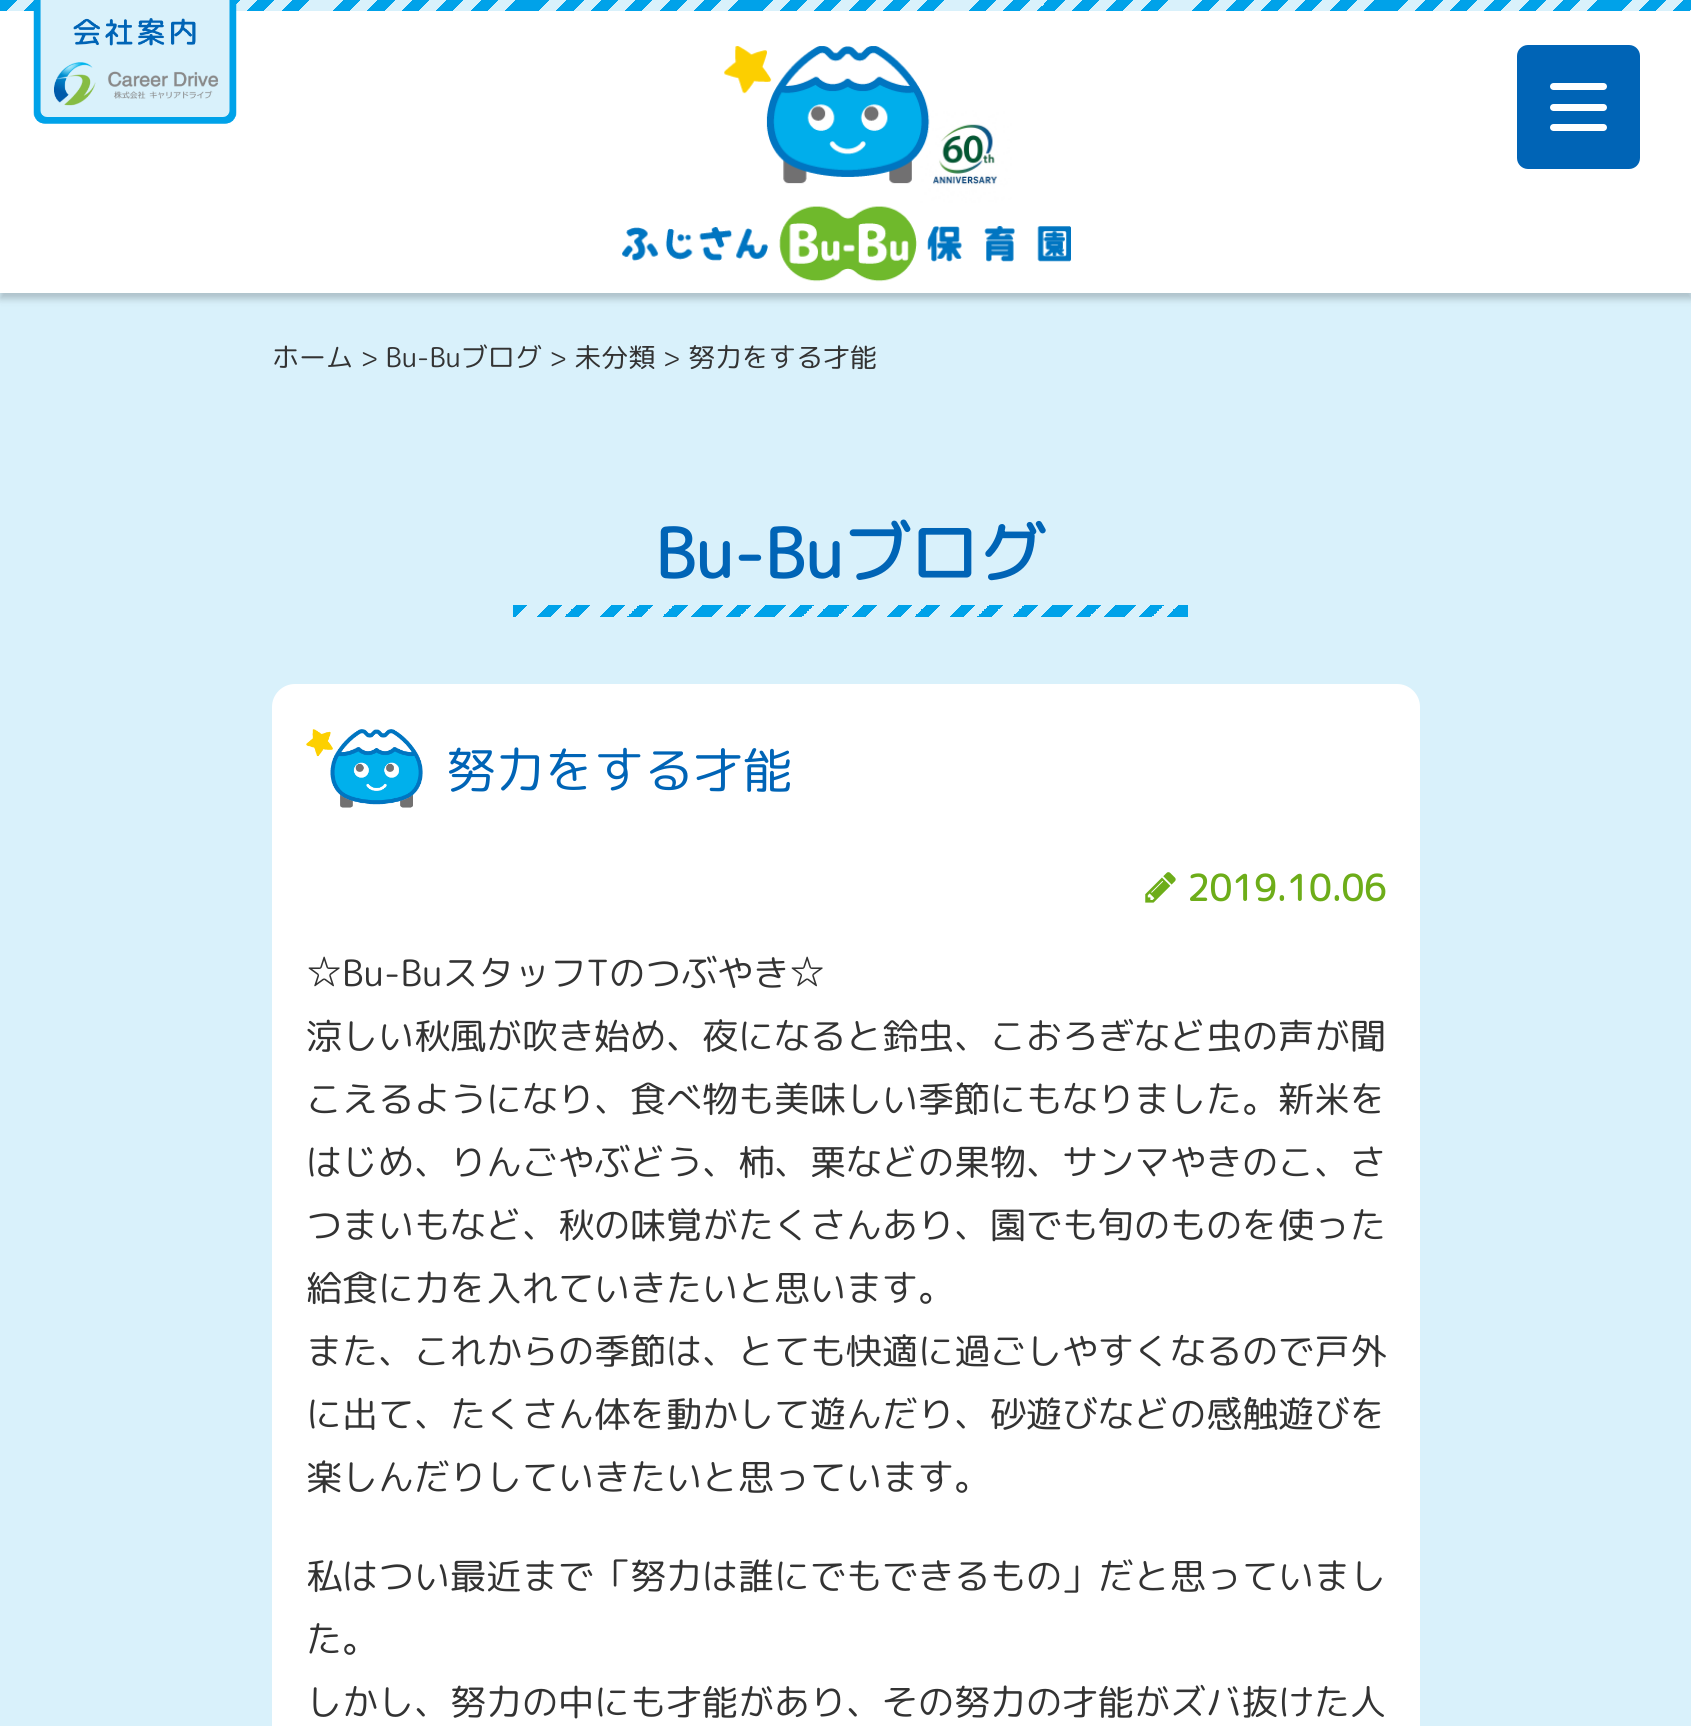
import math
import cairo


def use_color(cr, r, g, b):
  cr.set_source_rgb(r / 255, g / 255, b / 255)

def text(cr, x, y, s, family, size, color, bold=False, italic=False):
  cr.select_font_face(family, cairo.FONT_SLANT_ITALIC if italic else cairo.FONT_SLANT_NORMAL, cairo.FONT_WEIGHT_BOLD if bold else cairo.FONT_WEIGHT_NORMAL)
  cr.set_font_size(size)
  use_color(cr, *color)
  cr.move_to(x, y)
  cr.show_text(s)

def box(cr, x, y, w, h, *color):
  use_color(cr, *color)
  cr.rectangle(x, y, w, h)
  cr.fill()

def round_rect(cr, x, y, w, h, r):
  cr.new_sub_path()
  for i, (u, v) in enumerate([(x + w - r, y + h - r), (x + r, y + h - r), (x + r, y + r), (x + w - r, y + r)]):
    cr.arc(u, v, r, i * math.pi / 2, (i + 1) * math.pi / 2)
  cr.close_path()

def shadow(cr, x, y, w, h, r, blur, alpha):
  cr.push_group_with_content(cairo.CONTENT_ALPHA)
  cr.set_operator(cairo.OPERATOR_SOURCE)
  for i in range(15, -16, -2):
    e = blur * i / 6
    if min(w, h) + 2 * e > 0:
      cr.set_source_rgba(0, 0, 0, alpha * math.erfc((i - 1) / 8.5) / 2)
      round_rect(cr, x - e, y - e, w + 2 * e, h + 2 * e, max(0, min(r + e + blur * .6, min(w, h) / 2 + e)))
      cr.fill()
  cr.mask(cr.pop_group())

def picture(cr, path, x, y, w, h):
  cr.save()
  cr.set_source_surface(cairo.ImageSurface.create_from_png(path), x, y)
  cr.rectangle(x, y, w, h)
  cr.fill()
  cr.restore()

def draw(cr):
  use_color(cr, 217, 241, 251)
  cr.paint()
  use_color(cr, 0, 0, 0)
  shadow(cr, 0, 7, 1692, 292, 0, 3.5, 0.2)
  box(cr, 0, 11, 1691, 282, 255, 255, 255)
  use_color(cr, 0, 100, 182)
  round_rect(cr, 1517, 45, 123, 124, 11)
  cr.fill()
  use_color(cr, 255, 255, 255)
  round_rect(cr, 1550, 104, 57, 7, 3.5)
  cr.fill()
  round_rect(cr, 1550, 83, 57, 7, 3.5)
  cr.fill()
  round_rect(cr, 1550, 124, 57, 7, 3.5)
  cr.fill()
  gradient = cairo.LinearGradient(420, -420, 1279, 439)
  gradient.add_color_stop_rgba(0, 0, 0.635, 0.914, 1)
  gradient.add_color_stop_rgba(0.01, 0, 0.635, 0.914, 1)
  gradient.add_color_stop_rgba(0.01, 0.851, 0.945, 0.984, 1)
  gradient.add_color_stop_rgba(0.02, 0.851, 0.945, 0.984, 1)
  gradient.add_color_stop_rgba(0.02, 0, 0.635, 0.914, 1)
  gradient.add_color_stop_rgba(0.03, 0, 0.635, 0.914, 1)
  gradient.add_color_stop_rgba(0.03, 0.851, 0.945, 0.984, 1)
  gradient.add_color_stop_rgba(0.04, 0.851, 0.945, 0.984, 1)
  gradient.add_color_stop_rgba(0.04, 0, 0.635, 0.914, 1)
  gradient.add_color_stop_rgba(0.05, 0, 0.635, 0.914, 1)
  gradient.add_color_stop_rgba(0.05, 0.851, 0.945, 0.984, 1)
  gradient.add_color_stop_rgba(0.06, 0.851, 0.945, 0.984, 1)
  gradient.add_color_stop_rgba(0.06, 0, 0.635, 0.914, 1)
  gradient.add_color_stop_rgba(0.06, 0.851, 0.945, 0.984, 1)
  gradient.add_color_stop_rgba(0.07, 0.851, 0.945, 0.984, 1)
  gradient.add_color_stop_rgba(0.07, 0, 0.635, 0.914, 1)
  gradient.add_color_stop_rgba(0.08, 0, 0.635, 0.914, 1)
  gradient.add_color_stop_rgba(0.08, 0.851, 0.945, 0.984, 1)
  gradient.add_color_stop_rgba(0.09, 0.851, 0.945, 0.984, 1)
  gradient.add_color_stop_rgba(0.09, 0, 0.635, 0.914, 1)
  gradient.add_color_stop_rgba(0.1, 0, 0.635, 0.914, 1)
  gradient.add_color_stop_rgba(0.1, 0.851, 0.945, 0.984, 1)
  gradient.add_color_stop_rgba(0.11, 0.851, 0.945, 0.984, 1)
  gradient.add_color_stop_rgba(0.11, 0, 0.635, 0.914, 1)
  gradient.add_color_stop_rgba(0.12, 0, 0.635, 0.914, 1)
  gradient.add_color_stop_rgba(0.12, 0.851, 0.945, 0.984, 1)
  gradient.add_color_stop_rgba(0.13, 0.851, 0.945, 0.984, 1)
  gradient.add_color_stop_rgba(0.13, 0, 0.635, 0.914, 1)
  gradient.add_color_stop_rgba(0.14, 0, 0.635, 0.914, 1)
  gradient.add_color_stop_rgba(0.14, 0.851, 0.945, 0.984, 1)
  gradient.add_color_stop_rgba(0.15, 0.851, 0.945, 0.984, 1)
  gradient.add_color_stop_rgba(0.15, 0, 0.635, 0.914, 1)
  gradient.add_color_stop_rgba(0.16, 0, 0.635, 0.914, 1)
  gradient.add_color_stop_rgba(0.16, 0.851, 0.945, 0.984, 1)
  gradient.add_color_stop_rgba(0.17, 0.851, 0.945, 0.984, 1)
  gradient.add_color_stop_rgba(0.17, 0, 0.635, 0.914, 1)
  gradient.add_color_stop_rgba(0.18, 0, 0.635, 0.914, 1)
  gradient.add_color_stop_rgba(0.18, 0.851, 0.945, 0.984, 1)
  gradient.add_color_stop_rgba(0.19, 0.851, 0.945, 0.984, 1)
  gradient.add_color_stop_rgba(0.19, 0, 0.635, 0.914, 1)
  gradient.add_color_stop_rgba(0.19, 0.851, 0.945, 0.984, 1)
  gradient.add_color_stop_rgba(0.2, 0.851, 0.945, 0.984, 1)
  gradient.add_color_stop_rgba(0.2, 0, 0.635, 0.914, 1)
  gradient.add_color_stop_rgba(0.21, 0, 0.635, 0.914, 1)
  gradient.add_color_stop_rgba(0.21, 0.851, 0.945, 0.984, 1)
  gradient.add_color_stop_rgba(0.22, 0.851, 0.945, 0.984, 1)
  gradient.add_color_stop_rgba(0.22, 0, 0.635, 0.914, 1)
  gradient.add_color_stop_rgba(0.23, 0, 0.635, 0.914, 1)
  gradient.add_color_stop_rgba(0.23, 0.851, 0.945, 0.984, 1)
  gradient.add_color_stop_rgba(0.24, 0.851, 0.945, 0.984, 1)
  gradient.add_color_stop_rgba(0.24, 0, 0.635, 0.914, 1)
  gradient.add_color_stop_rgba(0.25, 0, 0.635, 0.914, 1)
  gradient.add_color_stop_rgba(0.25, 0.851, 0.945, 0.984, 1)
  gradient.add_color_stop_rgba(0.26, 0.851, 0.945, 0.984, 1)
  gradient.add_color_stop_rgba(0.26, 0, 0.635, 0.914, 1)
  gradient.add_color_stop_rgba(0.27, 0, 0.635, 0.914, 1)
  gradient.add_color_stop_rgba(0.27, 0.851, 0.945, 0.984, 1)
  gradient.add_color_stop_rgba(0.28, 0.851, 0.945, 0.984, 1)
  gradient.add_color_stop_rgba(0.28, 0, 0.635, 0.914, 1)
  gradient.add_color_stop_rgba(0.29, 0, 0.635, 0.914, 1)
  gradient.add_color_stop_rgba(0.29, 0.851, 0.945, 0.984, 1)
  gradient.add_color_stop_rgba(0.3, 0.851, 0.945, 0.984, 1)
  gradient.add_color_stop_rgba(0.3, 0, 0.635, 0.914, 1)
  gradient.add_color_stop_rgba(0.31, 0, 0.635, 0.914, 1)
  gradient.add_color_stop_rgba(0.31, 0.851, 0.945, 0.984, 1)
  gradient.add_color_stop_rgba(0.31, 0, 0.635, 0.914, 1)
  gradient.add_color_stop_rgba(0.32, 0, 0.635, 0.914, 1)
  gradient.add_color_stop_rgba(0.32, 0.851, 0.945, 0.984, 1)
  gradient.add_color_stop_rgba(0.33, 0.851, 0.945, 0.984, 1)
  gradient.add_color_stop_rgba(0.33, 0, 0.635, 0.914, 1)
  gradient.add_color_stop_rgba(0.34, 0, 0.635, 0.914, 1)
  gradient.add_color_stop_rgba(0.34, 0.851, 0.945, 0.984, 1)
  gradient.add_color_stop_rgba(0.35, 0.851, 0.945, 0.984, 1)
  gradient.add_color_stop_rgba(0.35, 0, 0.635, 0.914, 1)
  gradient.add_color_stop_rgba(0.36, 0, 0.635, 0.914, 1)
  gradient.add_color_stop_rgba(0.36, 0.851, 0.945, 0.984, 1)
  gradient.add_color_stop_rgba(0.37, 0.851, 0.945, 0.984, 1)
  gradient.add_color_stop_rgba(0.37, 0, 0.635, 0.914, 1)
  gradient.add_color_stop_rgba(0.38, 0, 0.635, 0.914, 1)
  gradient.add_color_stop_rgba(0.38, 0.851, 0.945, 0.984, 1)
  gradient.add_color_stop_rgba(0.39, 0.851, 0.945, 0.984, 1)
  gradient.add_color_stop_rgba(0.39, 0, 0.635, 0.914, 1)
  gradient.add_color_stop_rgba(0.4, 0, 0.635, 0.914, 1)
  gradient.add_color_stop_rgba(0.4, 0.851, 0.945, 0.984, 1)
  gradient.add_color_stop_rgba(0.41, 0.851, 0.945, 0.984, 1)
  gradient.add_color_stop_rgba(0.41, 0, 0.635, 0.914, 1)
  gradient.add_color_stop_rgba(0.42, 0, 0.635, 0.914, 1)
  gradient.add_color_stop_rgba(0.42, 0.851, 0.945, 0.984, 1)
  gradient.add_color_stop_rgba(0.43, 0.851, 0.945, 0.984, 1)
  gradient.add_color_stop_rgba(0.43, 0, 0.635, 0.914, 1)
  gradient.add_color_stop_rgba(0.44, 0, 0.635, 0.914, 1)
  gradient.add_color_stop_rgba(0.44, 0.851, 0.945, 0.984, 1)
  gradient.add_color_stop_rgba(0.44, 0, 0.635, 0.914, 1)
  gradient.add_color_stop_rgba(0.45, 0, 0.635, 0.914, 1)
  gradient.add_color_stop_rgba(0.45, 0.851, 0.945, 0.984, 1)
  gradient.add_color_stop_rgba(0.46, 0.851, 0.945, 0.984, 1)
  gradient.add_color_stop_rgba(0.46, 0, 0.635, 0.914, 1)
  gradient.add_color_stop_rgba(0.47, 0, 0.635, 0.914, 1)
  gradient.add_color_stop_rgba(0.47, 0.851, 0.945, 0.984, 1)
  gradient.add_color_stop_rgba(0.48, 0.851, 0.945, 0.984, 1)
  gradient.add_color_stop_rgba(0.48, 0, 0.635, 0.914, 1)
  gradient.add_color_stop_rgba(0.49, 0, 0.635, 0.914, 1)
  gradient.add_color_stop_rgba(0.49, 0.851, 0.945, 0.984, 1)
  gradient.add_color_stop_rgba(0.5, 0.851, 0.945, 0.984, 1)
  gradient.add_color_stop_rgba(0.5, 0, 0.635, 0.914, 1)
  gradient.add_color_stop_rgba(0.51, 0, 0.635, 0.914, 1)
  gradient.add_color_stop_rgba(0.51, 0.851, 0.945, 0.984, 1)
  gradient.add_color_stop_rgba(0.52, 0.851, 0.945, 0.984, 1)
  gradient.add_color_stop_rgba(0.52, 0, 0.635, 0.914, 1)
  gradient.add_color_stop_rgba(0.53, 0, 0.635, 0.914, 1)
  gradient.add_color_stop_rgba(0.53, 0.851, 0.945, 0.984, 1)
  gradient.add_color_stop_rgba(0.54, 0.851, 0.945, 0.984, 1)
  gradient.add_color_stop_rgba(0.54, 0, 0.635, 0.914, 1)
  gradient.add_color_stop_rgba(0.55, 0, 0.635, 0.914, 1)
  gradient.add_color_stop_rgba(0.55, 0.851, 0.945, 0.984, 1)
  gradient.add_color_stop_rgba(0.56, 0.851, 0.945, 0.984, 1)
  gradient.add_color_stop_rgba(0.56, 0, 0.635, 0.914, 1)
  gradient.add_color_stop_rgba(0.56, 0.851, 0.945, 0.984, 1)
  gradient.add_color_stop_rgba(0.57, 0.851, 0.945, 0.984, 1)
  gradient.add_color_stop_rgba(0.57, 0, 0.635, 0.914, 1)
  gradient.add_color_stop_rgba(0.58, 0, 0.635, 0.914, 1)
  gradient.add_color_stop_rgba(0.58, 0.851, 0.945, 0.984, 1)
  gradient.add_color_stop_rgba(0.59, 0.851, 0.945, 0.984, 1)
  gradient.add_color_stop_rgba(0.59, 0, 0.635, 0.914, 1)
  gradient.add_color_stop_rgba(0.6, 0, 0.635, 0.914, 1)
  gradient.add_color_stop_rgba(0.6, 0.851, 0.945, 0.984, 1)
  gradient.add_color_stop_rgba(0.61, 0.851, 0.945, 0.984, 1)
  gradient.add_color_stop_rgba(0.61, 0, 0.635, 0.914, 1)
  gradient.add_color_stop_rgba(0.62, 0, 0.635, 0.914, 1)
  gradient.add_color_stop_rgba(0.62, 0.851, 0.945, 0.984, 1)
  gradient.add_color_stop_rgba(0.63, 0.851, 0.945, 0.984, 1)
  gradient.add_color_stop_rgba(0.63, 0, 0.635, 0.914, 1)
  gradient.add_color_stop_rgba(0.64, 0, 0.635, 0.914, 1)
  gradient.add_color_stop_rgba(0.64, 0.851, 0.945, 0.984, 1)
  gradient.add_color_stop_rgba(0.65, 0.851, 0.945, 0.984, 1)
  gradient.add_color_stop_rgba(0.65, 0, 0.635, 0.914, 1)
  gradient.add_color_stop_rgba(0.66, 0, 0.635, 0.914, 1)
  gradient.add_color_stop_rgba(0.66, 0.851, 0.945, 0.984, 1)
  gradient.add_color_stop_rgba(0.67, 0.851, 0.945, 0.984, 1)
  gradient.add_color_stop_rgba(0.67, 0, 0.635, 0.914, 1)
  gradient.add_color_stop_rgba(0.68, 0, 0.635, 0.914, 1)
  gradient.add_color_stop_rgba(0.68, 0.851, 0.945, 0.984, 1)
  gradient.add_color_stop_rgba(0.69, 0.851, 0.945, 0.984, 1)
  gradient.add_color_stop_rgba(0.69, 0, 0.635, 0.914, 1)
  gradient.add_color_stop_rgba(0.69, 0.851, 0.945, 0.984, 1)
  gradient.add_color_stop_rgba(0.7, 0.851, 0.945, 0.984, 1)
  gradient.add_color_stop_rgba(0.7, 0, 0.635, 0.914, 1)
  gradient.add_color_stop_rgba(0.71, 0, 0.635, 0.914, 1)
  gradient.add_color_stop_rgba(0.71, 0.851, 0.945, 0.984, 1)
  gradient.add_color_stop_rgba(0.72, 0.851, 0.945, 0.984, 1)
  gradient.add_color_stop_rgba(0.72, 0, 0.635, 0.914, 1)
  gradient.add_color_stop_rgba(0.73, 0, 0.635, 0.914, 1)
  gradient.add_color_stop_rgba(0.73, 0.851, 0.945, 0.984, 1)
  gradient.add_color_stop_rgba(0.74, 0.851, 0.945, 0.984, 1)
  gradient.add_color_stop_rgba(0.74, 0, 0.635, 0.914, 1)
  gradient.add_color_stop_rgba(0.75, 0, 0.635, 0.914, 1)
  gradient.add_color_stop_rgba(0.75, 0.851, 0.945, 0.984, 1)
  gradient.add_color_stop_rgba(0.76, 0.851, 0.945, 0.984, 1)
  gradient.add_color_stop_rgba(0.76, 0, 0.635, 0.914, 1)
  gradient.add_color_stop_rgba(0.77, 0, 0.635, 0.914, 1)
  gradient.add_color_stop_rgba(0.77, 0.851, 0.945, 0.984, 1)
  gradient.add_color_stop_rgba(0.78, 0.851, 0.945, 0.984, 1)
  gradient.add_color_stop_rgba(0.78, 0, 0.635, 0.914, 1)
  gradient.add_color_stop_rgba(0.79, 0, 0.635, 0.914, 1)
  gradient.add_color_stop_rgba(0.79, 0.851, 0.945, 0.984, 1)
  gradient.add_color_stop_rgba(0.8, 0.851, 0.945, 0.984, 1)
  gradient.add_color_stop_rgba(0.8, 0, 0.635, 0.914, 1)
  gradient.add_color_stop_rgba(0.81, 0, 0.635, 0.914, 1)
  gradient.add_color_stop_rgba(0.81, 0.851, 0.945, 0.984, 1)
  gradient.add_color_stop_rgba(0.81, 0, 0.635, 0.914, 1)
  gradient.add_color_stop_rgba(0.82, 0, 0.635, 0.914, 1)
  gradient.add_color_stop_rgba(0.82, 0.851, 0.945, 0.984, 1)
  gradient.add_color_stop_rgba(0.83, 0.851, 0.945, 0.984, 1)
  gradient.add_color_stop_rgba(0.83, 0, 0.635, 0.914, 1)
  gradient.add_color_stop_rgba(0.84, 0, 0.635, 0.914, 1)
  gradient.add_color_stop_rgba(0.84, 0.851, 0.945, 0.984, 1)
  gradient.add_color_stop_rgba(0.85, 0.851, 0.945, 0.984, 1)
  gradient.add_color_stop_rgba(0.85, 0, 0.635, 0.914, 1)
  gradient.add_color_stop_rgba(0.86, 0, 0.635, 0.914, 1)
  gradient.add_color_stop_rgba(0.86, 0.851, 0.945, 0.984, 1)
  gradient.add_color_stop_rgba(0.87, 0.851, 0.945, 0.984, 1)
  gradient.add_color_stop_rgba(0.87, 0, 0.635, 0.914, 1)
  gradient.add_color_stop_rgba(0.88, 0, 0.635, 0.914, 1)
  gradient.add_color_stop_rgba(0.88, 0.851, 0.945, 0.984, 1)
  gradient.add_color_stop_rgba(0.89, 0.851, 0.945, 0.984, 1)
  gradient.add_color_stop_rgba(0.89, 0, 0.635, 0.914, 1)
  gradient.add_color_stop_rgba(0.9, 0, 0.635, 0.914, 1)
  gradient.add_color_stop_rgba(0.9, 0.851, 0.945, 0.984, 1)
  gradient.add_color_stop_rgba(0.91, 0.851, 0.945, 0.984, 1)
  gradient.add_color_stop_rgba(0.91, 0, 0.635, 0.914, 1)
  gradient.add_color_stop_rgba(0.92, 0, 0.635, 0.914, 1)
  gradient.add_color_stop_rgba(0.92, 0.851, 0.945, 0.984, 1)
  gradient.add_color_stop_rgba(0.93, 0.851, 0.945, 0.984, 1)
  gradient.add_color_stop_rgba(0.93, 0, 0.635, 0.914, 1)
  gradient.add_color_stop_rgba(0.94, 0, 0.635, 0.914, 1)
  gradient.add_color_stop_rgba(0.94, 0.851, 0.945, 0.984, 1)
  gradient.add_color_stop_rgba(0.94, 0, 0.635, 0.914, 1)
  gradient.add_color_stop_rgba(0.95, 0, 0.635, 0.914, 1)
  gradient.add_color_stop_rgba(0.95, 0.851, 0.945, 0.984, 1)
  gradient.add_color_stop_rgba(0.96, 0.851, 0.945, 0.984, 1)
  gradient.add_color_stop_rgba(0.96, 0, 0.635, 0.914, 1)
  gradient.add_color_stop_rgba(0.97, 0, 0.635, 0.914, 1)
  gradient.add_color_stop_rgba(0.97, 0.851, 0.945, 0.984, 1)
  gradient.add_color_stop_rgba(0.98, 0.851, 0.945, 0.984, 1)
  gradient.add_color_stop_rgba(0.98, 0, 0.635, 0.914, 1)
  gradient.add_color_stop_rgba(0.99, 0, 0.635, 0.914, 1)
  gradient.add_color_stop_rgba(0.99, 0.851, 0.945, 0.984, 1)
  gradient.add_color_stop_rgba(1, 0.851, 0.945, 0.984, 1)
  cr.set_source(gradient)
  cr.rectangle(0, 0, 1691, 11)
  cr.fill()
  picture(cr, "img_01.png", 33, 0, 204, 124)
  picture(cr, "img_02.png", 622, 46, 449, 236)
  gradient = cairo.LinearGradient(679, 439, 1029, 789)
  gradient.add_color_stop_rgba(0, 0, 0.635, 0.914, 1)
  gradient.add_color_stop_rgba(0.02, 0, 0.635, 0.914, 1)
  gradient.add_color_stop_rgba(0.02, 0.851, 0.945, 0.984, 1)
  gradient.add_color_stop_rgba(0.05, 0.851, 0.945, 0.984, 1)
  gradient.add_color_stop_rgba(0.05, 0, 0.635, 0.914, 1)
  gradient.add_color_stop_rgba(0.07, 0, 0.635, 0.914, 1)
  gradient.add_color_stop_rgba(0.07, 0.851, 0.945, 0.984, 1)
  gradient.add_color_stop_rgba(0.09, 0.851, 0.945, 0.984, 1)
  gradient.add_color_stop_rgba(0.09, 0, 0.635, 0.914, 1)
  gradient.add_color_stop_rgba(0.11, 0, 0.635, 0.914, 1)
  gradient.add_color_stop_rgba(0.11, 0.851, 0.945, 0.984, 1)
  gradient.add_color_stop_rgba(0.14, 0.851, 0.945, 0.984, 1)
  gradient.add_color_stop_rgba(0.14, 0, 0.635, 0.914, 1)
  gradient.add_color_stop_rgba(0.16, 0, 0.635, 0.914, 1)
  gradient.add_color_stop_rgba(0.16, 0.851, 0.945, 0.984, 1)
  gradient.add_color_stop_rgba(0.18, 0.851, 0.945, 0.984, 1)
  gradient.add_color_stop_rgba(0.18, 0, 0.635, 0.914, 1)
  gradient.add_color_stop_rgba(0.2, 0, 0.635, 0.914, 1)
  gradient.add_color_stop_rgba(0.2, 0.851, 0.945, 0.984, 1)
  gradient.add_color_stop_rgba(0.23, 0.851, 0.945, 0.984, 1)
  gradient.add_color_stop_rgba(0.23, 0, 0.635, 0.914, 1)
  gradient.add_color_stop_rgba(0.25, 0, 0.635, 0.914, 1)
  gradient.add_color_stop_rgba(0.25, 0.851, 0.945, 0.984, 1)
  gradient.add_color_stop_rgba(0.27, 0.851, 0.945, 0.984, 1)
  gradient.add_color_stop_rgba(0.27, 0, 0.635, 0.914, 1)
  gradient.add_color_stop_rgba(0.3, 0, 0.635, 0.914, 1)
  gradient.add_color_stop_rgba(0.3, 0.851, 0.945, 0.984, 1)
  gradient.add_color_stop_rgba(0.32, 0.851, 0.945, 0.984, 1)
  gradient.add_color_stop_rgba(0.32, 0, 0.635, 0.914, 1)
  gradient.add_color_stop_rgba(0.34, 0, 0.635, 0.914, 1)
  gradient.add_color_stop_rgba(0.34, 0.851, 0.945, 0.984, 1)
  gradient.add_color_stop_rgba(0.36, 0.851, 0.945, 0.984, 1)
  gradient.add_color_stop_rgba(0.36, 0, 0.635, 0.914, 1)
  gradient.add_color_stop_rgba(0.39, 0, 0.635, 0.914, 1)
  gradient.add_color_stop_rgba(0.39, 0.851, 0.945, 0.984, 1)
  gradient.add_color_stop_rgba(0.41, 0.851, 0.945, 0.984, 1)
  gradient.add_color_stop_rgba(0.41, 0, 0.635, 0.914, 1)
  gradient.add_color_stop_rgba(0.43, 0, 0.635, 0.914, 1)
  gradient.add_color_stop_rgba(0.43, 0.851, 0.945, 0.984, 1)
  gradient.add_color_stop_rgba(0.45, 0.851, 0.945, 0.984, 1)
  gradient.add_color_stop_rgba(0.45, 0, 0.635, 0.914, 1)
  gradient.add_color_stop_rgba(0.48, 0, 0.635, 0.914, 1)
  gradient.add_color_stop_rgba(0.48, 0.851, 0.945, 0.984, 1)
  gradient.add_color_stop_rgba(0.5, 0.851, 0.945, 0.984, 1)
  gradient.add_color_stop_rgba(0.5, 0, 0.635, 0.914, 1)
  gradient.add_color_stop_rgba(0.52, 0, 0.635, 0.914, 1)
  gradient.add_color_stop_rgba(0.52, 0.851, 0.945, 0.984, 1)
  gradient.add_color_stop_rgba(0.55, 0.851, 0.945, 0.984, 1)
  gradient.add_color_stop_rgba(0.55, 0, 0.635, 0.914, 1)
  gradient.add_color_stop_rgba(0.57, 0, 0.635, 0.914, 1)
  gradient.add_color_stop_rgba(0.57, 0.851, 0.945, 0.984, 1)
  gradient.add_color_stop_rgba(0.59, 0.851, 0.945, 0.984, 1)
  gradient.add_color_stop_rgba(0.59, 0, 0.635, 0.914, 1)
  gradient.add_color_stop_rgba(0.61, 0, 0.635, 0.914, 1)
  gradient.add_color_stop_rgba(0.61, 0.851, 0.945, 0.984, 1)
  gradient.add_color_stop_rgba(0.64, 0.851, 0.945, 0.984, 1)
  gradient.add_color_stop_rgba(0.64, 0, 0.635, 0.914, 1)
  gradient.add_color_stop_rgba(0.66, 0, 0.635, 0.914, 1)
  gradient.add_color_stop_rgba(0.66, 0.851, 0.945, 0.984, 1)
  gradient.add_color_stop_rgba(0.68, 0.851, 0.945, 0.984, 1)
  gradient.add_color_stop_rgba(0.68, 0, 0.635, 0.914, 1)
  gradient.add_color_stop_rgba(0.7, 0, 0.635, 0.914, 1)
  gradient.add_color_stop_rgba(0.7, 0.851, 0.945, 0.984, 1)
  gradient.add_color_stop_rgba(0.73, 0.851, 0.945, 0.984, 1)
  gradient.add_color_stop_rgba(0.73, 0, 0.635, 0.914, 1)
  gradient.add_color_stop_rgba(0.75, 0, 0.635, 0.914, 1)
  gradient.add_color_stop_rgba(0.75, 0.851, 0.945, 0.984, 1)
  gradient.add_color_stop_rgba(0.77, 0.851, 0.945, 0.984, 1)
  gradient.add_color_stop_rgba(0.77, 0, 0.635, 0.914, 1)
  gradient.add_color_stop_rgba(0.8, 0, 0.635, 0.914, 1)
  gradient.add_color_stop_rgba(0.8, 0.851, 0.945, 0.984, 1)
  gradient.add_color_stop_rgba(0.82, 0.851, 0.945, 0.984, 1)
  gradient.add_color_stop_rgba(0.82, 0, 0.635, 0.914, 1)
  gradient.add_color_stop_rgba(0.84, 0, 0.635, 0.914, 1)
  gradient.add_color_stop_rgba(0.84, 0.851, 0.945, 0.984, 1)
  gradient.add_color_stop_rgba(0.86, 0.851, 0.945, 0.984, 1)
  gradient.add_color_stop_rgba(0.86, 0, 0.635, 0.914, 1)
  gradient.add_color_stop_rgba(0.89, 0, 0.635, 0.914, 1)
  gradient.add_color_stop_rgba(0.89, 0.851, 0.945, 0.984, 1)
  gradient.add_color_stop_rgba(0.91, 0.851, 0.945, 0.984, 1)
  gradient.add_color_stop_rgba(0.91, 0, 0.635, 0.914, 1)
  gradient.add_color_stop_rgba(0.93, 0, 0.635, 0.914, 1)
  gradient.add_color_stop_rgba(0.93, 0.851, 0.945, 0.984, 1)
  gradient.add_color_stop_rgba(0.95, 0.851, 0.945, 0.984, 1)
  gradient.add_color_stop_rgba(0.95, 0, 0.635, 0.914, 1)
  gradient.add_color_stop_rgba(0.98, 0, 0.635, 0.914, 1)
  gradient.add_color_stop_rgba(0.98, 0.851, 0.945, 0.984, 1)
  gradient.add_color_stop_rgba(1, 0.851, 0.945, 0.984, 1)
  cr.set_source(gradient)
  cr.rectangle(513, 605, 675, 12)
  cr.fill()
  use_color(cr, 255, 255, 255)
  round_rect(cr, 272, 684, 1148, 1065, 23)
  cr.fill()
  picture(cr, "img_03.png", 306, 729, 117, 79)
  picture(cr, "img_04.png", 1145, 872, 31, 31)
  text(cr, 272, 367, "ホーム > Bu-Buブログ > 未分類 > 努力をする才能", "Rounded Mplus 1c", 27, (51, 51, 51))
  text(cr, 655, 578, "Bu-Buブログ", "Rounded Mplus 1c", 67.5, (0, 100, 182), bold=True)
  text(cr, 446, 788, "努力をする才能", "Rounded Mplus 1c", 49.5, (0, 100, 182))
  text(cr, 1187, 901, "2019.10.06", "Rounded Mplus 1c", 36, (109, 173, 25), bold=True)
  text(cr, 306, 986, "☆Bu-BuスタッフTのつぶやき☆", "Rounded Mplus 1c", 36, (51, 51, 51))
  text(cr, 306, 1049, "涼しい秋風が吹き始め、夜になると鈴虫、こおろぎなど虫の声が聞", "Rounded Mplus 1c", 36, (51, 51, 51))
  text(cr, 306, 1112, "こえるようになり、食べ物も美味しい季節にもなりました。新米を", "Rounded Mplus 1c", 36, (51, 51, 51))
  text(cr, 306, 1175, "はじめ、りんごやぶどう、柿、栗などの果物、サンマやきのこ、さ", "Rounded Mplus 1c", 36, (51, 51, 51))
  text(cr, 306, 1238, "つまいもなど、秋の味覚がたくさんあり、園でも旬のものを使った", "Rounded Mplus 1c", 36, (51, 51, 51))
  text(cr, 306, 1301, "給食に力を入れていきたいと思います。", "Rounded Mplus 1c", 36, (51, 51, 51))
  text(cr, 306, 1364, "また、これからの季節は、とても快適に過ごしやすくなるので戸外", "Rounded Mplus 1c", 36, (51, 51, 51))
  text(cr, 306, 1427, "に出て、たくさん体を動かして遊んだり、砂遊びなどの感触遊びを", "Rounded Mplus 1c", 36, (51, 51, 51))
  text(cr, 306, 1490, "楽しんだりしていきたいと思っています。", "Rounded Mplus 1c", 36, (51, 51, 51))
  text(cr, 306, 1589, "私はつい最近まで「努力は誰にでもできるもの」だと思っていまし", "Rounded Mplus 1c", 36, (51, 51, 51))
  text(cr, 306, 1652, "た。", "Rounded Mplus 1c", 36, (51, 51, 51))
  text(cr, 306, 1715, "しかし、努力の中にも才能があり、その努力の才能がズバ抜けた人", "Rounded Mplus 1c", 36, (51, 51, 51))


surface = cairo.ImageSurface(cairo.FORMAT_RGB24, 1691, 1726)
cr = cairo.Context(surface)
options = cairo.FontOptions()
options.set_hint_metrics(cairo.HINT_METRICS_OFF)
options.set_hint_style(cairo.HINT_STYLE_NONE)
cr.set_font_options(options)
cr.set_miter_limit(4)
draw(cr)
surface.write_to_png("out.png")
